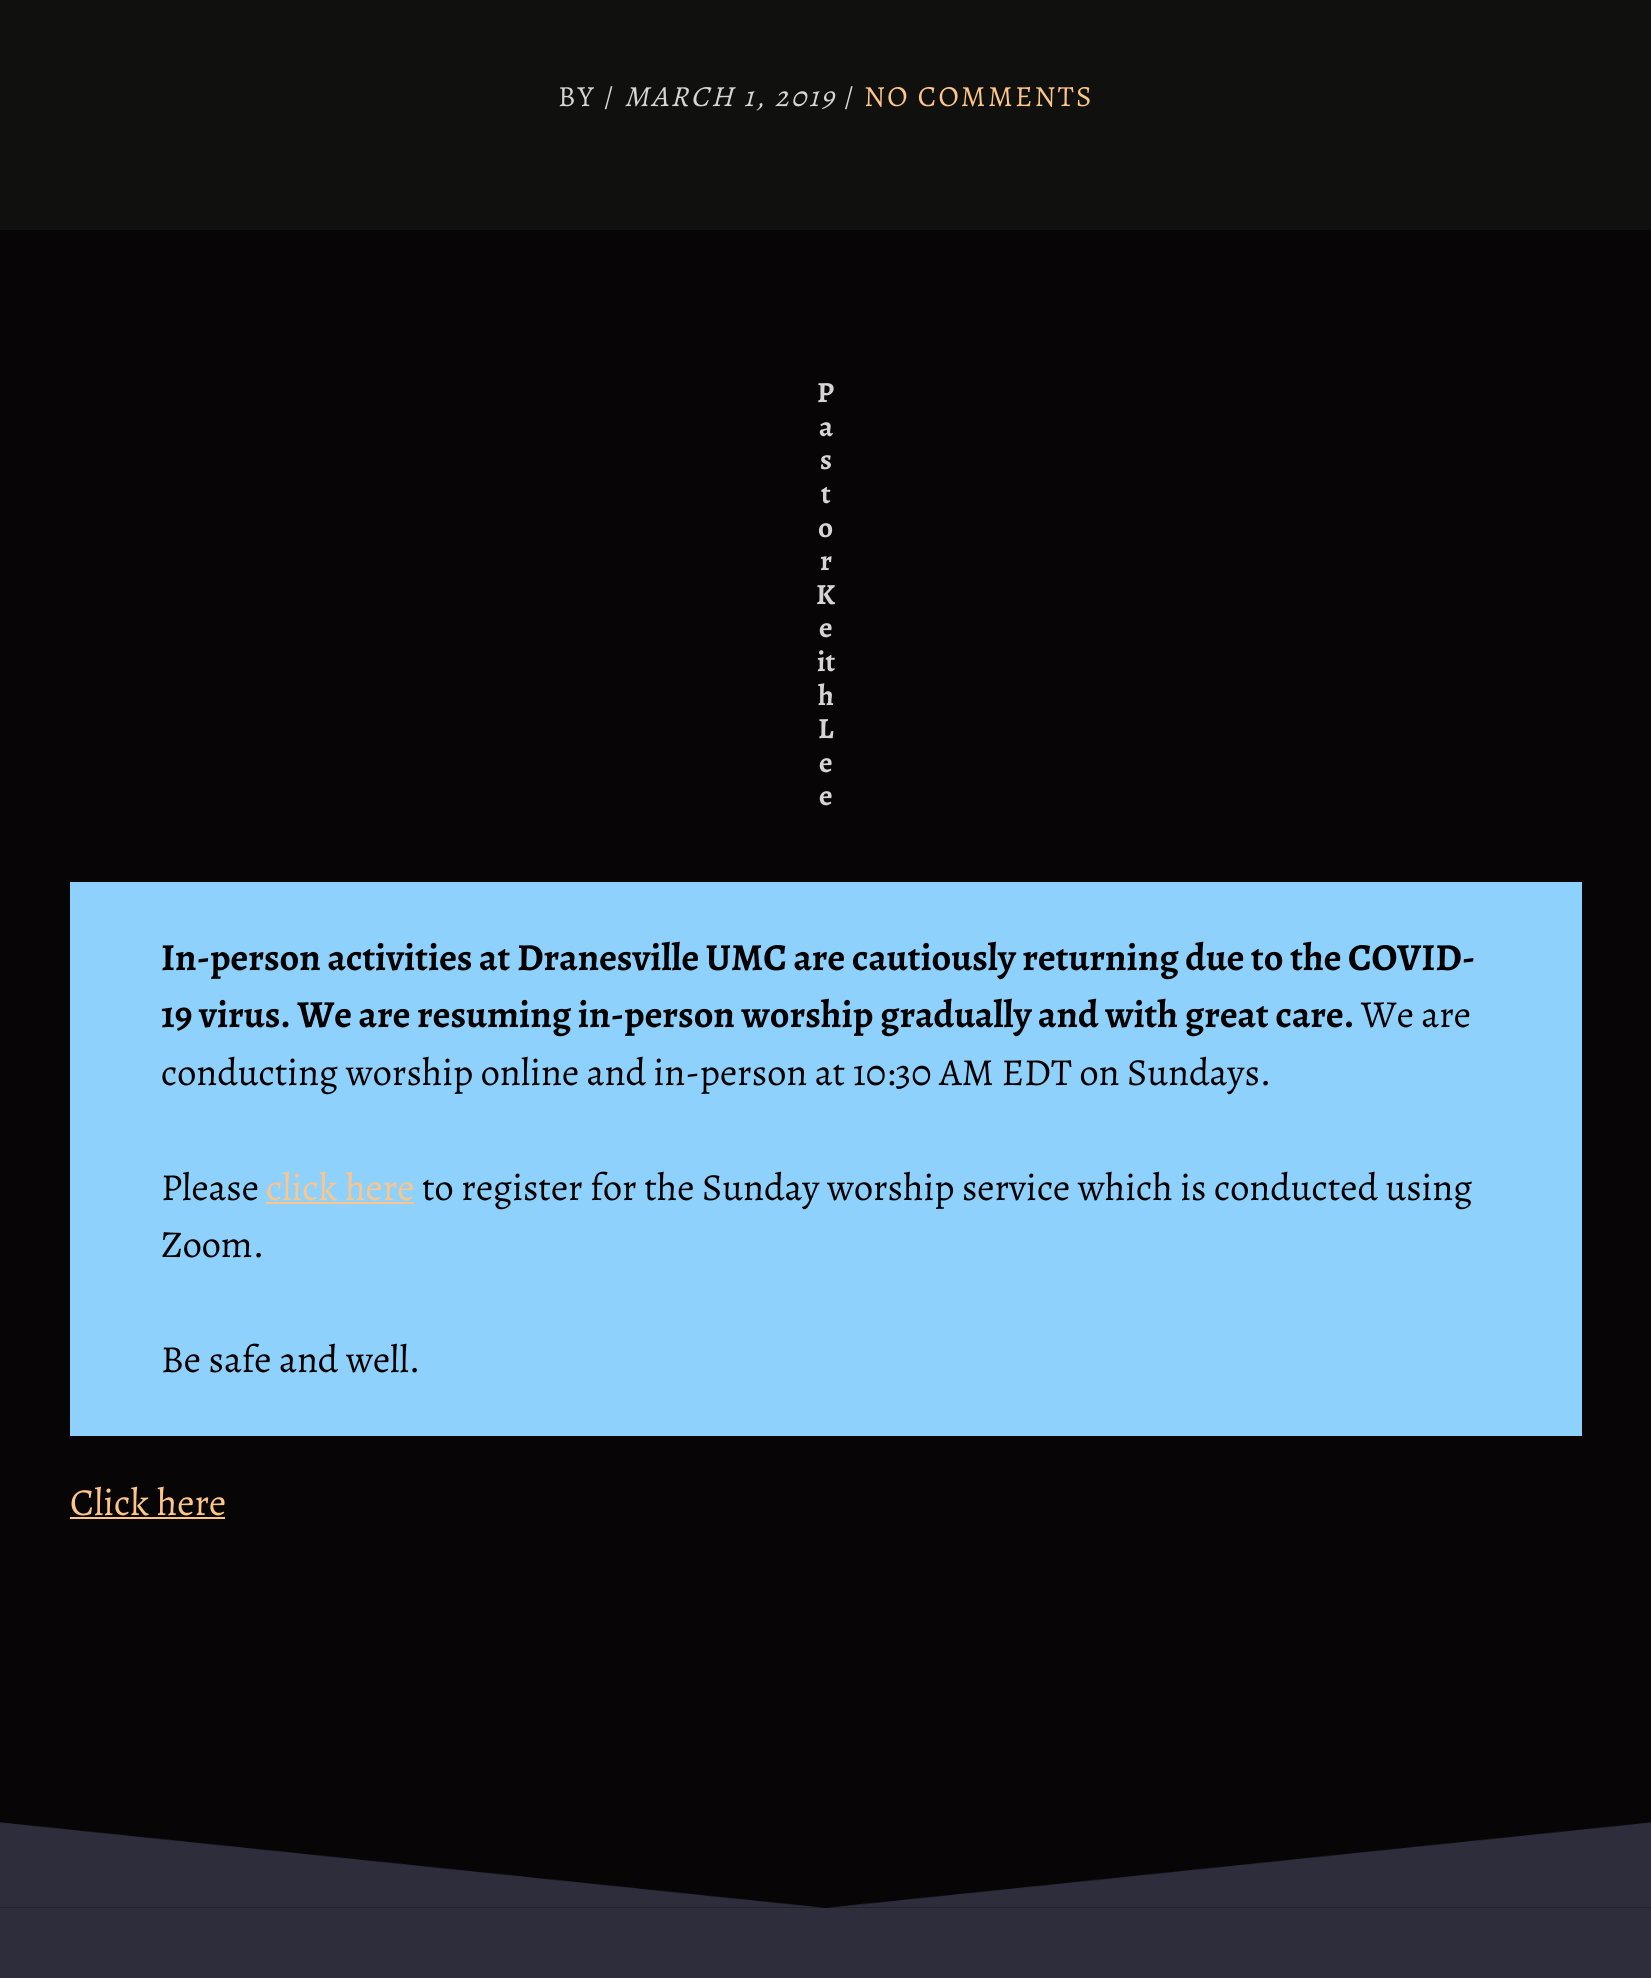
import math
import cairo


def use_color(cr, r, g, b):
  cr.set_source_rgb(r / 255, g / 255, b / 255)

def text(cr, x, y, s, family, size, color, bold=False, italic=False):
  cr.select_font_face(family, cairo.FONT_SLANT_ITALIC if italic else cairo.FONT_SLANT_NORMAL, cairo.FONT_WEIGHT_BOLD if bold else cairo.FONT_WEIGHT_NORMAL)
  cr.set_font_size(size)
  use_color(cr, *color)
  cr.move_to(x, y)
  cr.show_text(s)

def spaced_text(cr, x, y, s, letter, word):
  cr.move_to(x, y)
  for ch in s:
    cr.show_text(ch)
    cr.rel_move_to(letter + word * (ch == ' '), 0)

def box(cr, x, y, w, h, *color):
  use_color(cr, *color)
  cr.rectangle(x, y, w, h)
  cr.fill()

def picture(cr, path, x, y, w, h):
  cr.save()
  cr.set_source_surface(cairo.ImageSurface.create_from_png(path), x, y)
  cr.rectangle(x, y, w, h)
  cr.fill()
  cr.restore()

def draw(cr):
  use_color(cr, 7, 5, 6)
  cr.paint()
  box(cr, 0, 0, 1651, 230, 16, 16, 14)
  box(cr, 70, 882, 1512, 554, 142, 209, 252)
  box(cr, 266, 1202, 148, 2, 253, 197, 138)
  box(cr, 70, 1517, 155, 2, 253, 197, 138)
  box(cr, 0, 1908, 1651, 70, 45, 45, 60)
  picture(cr, "img_01.png", 0, 1822, 1651, 86)
  cr.select_font_face("Alegreya")
  cr.set_font_size(29.25)
  use_color(cr, 213, 213, 213)
  spaced_text(cr, 558, 106, "BY /", 2.25, 0)
  cr.select_font_face("Alegreya", cairo.FONT_SLANT_ITALIC)
  spaced_text(cr, 624, 106, "MARCH 1, 2019", 2.25, 0)
  cr.select_font_face("Alegreya")
  spaced_text(cr, 844, 106, "/", 2.25, 0)
  use_color(cr, 253, 197, 138)
  spaced_text(cr, 864, 106, "NO COMMENTS", 2.25, 0)
  text(cr, 817, 402, "P", "Alegreya", 29.25, (213, 213, 213), bold=True)
  text(cr, 819, 436, "a", "Alegreya", 29.25, (213, 213, 213), bold=True)
  text(cr, 820, 469, "s", "Alegreya", 29.25, (213, 213, 213), bold=True)
  text(cr, 821, 503, "t", "Alegreya", 29.25, (213, 213, 213), bold=True)
  text(cr, 818, 537, "o", "Alegreya", 29.25, (213, 213, 213), bold=True)
  text(cr, 820, 570, "r", "Alegreya", 29.25, (213, 213, 213), bold=True)
  text(cr, 816, 604, "K", "Alegreya", 29.25, (213, 213, 213), bold=True)
  text(cr, 819, 637, "e", "Alegreya", 29.25, (213, 213, 213), bold=True)
  text(cr, 817, 671, "it", "Alegreya", 29.25, (213, 213, 213), bold=True)
  text(cr, 818, 705, "h", "Alegreya", 29.25, (213, 213, 213), bold=True)
  text(cr, 818, 738, "L", "Alegreya", 29.25, (213, 213, 213), bold=True)
  text(cr, 819, 772, "e", "Alegreya", 29.25, (213, 213, 213), bold=True)
  text(cr, 819, 805, "e", "Alegreya", 29.25, (213, 213, 213), bold=True)
  text(cr, 161, 970, "In-person activities at Dranesville UMC are cautiously returning due to the COVID-", "Alegreya", 38.25, (0, 0, 0), bold=True)
  text(cr, 161, 1027, "19 virus. We are resuming in-person worship gradually and with great care.", "Alegreya", 38.25, (0, 0, 0), bold=True)
  text(cr, 1361, 1027, "We are", "Alegreya", 38.25, (0, 0, 0))
  text(cr, 161, 1085, "conducting worship online and in-person at 10:30 AM EDT on Sundays.", "Alegreya", 38.25, (0, 0, 0))
  text(cr, 161, 1200, "Please", "Alegreya", 38.25, (0, 0, 0))
  text(cr, 266, 1200, "click here", "Alegreya", 38.25, (253, 197, 138))
  text(cr, 422, 1200, "to register for the Sunday worship service which is conducted using", "Alegreya", 38.25, (0, 0, 0))
  text(cr, 161, 1257, "Zoom.", "Alegreya", 38.25, (0, 0, 0))
  text(cr, 161, 1372, "Be safe and well.", "Alegreya", 38.25, (0, 0, 0))
  text(cr, 70, 1515, "Click here", "Alegreya", 38.25, (253, 197, 138))


surface = cairo.ImageSurface(cairo.FORMAT_RGB24, 1651, 1978)
cr = cairo.Context(surface)
options = cairo.FontOptions()
options.set_hint_metrics(cairo.HINT_METRICS_OFF)
options.set_hint_style(cairo.HINT_STYLE_NONE)
cr.set_font_options(options)
cr.set_miter_limit(4)
draw(cr)
surface.write_to_png("out.png")
